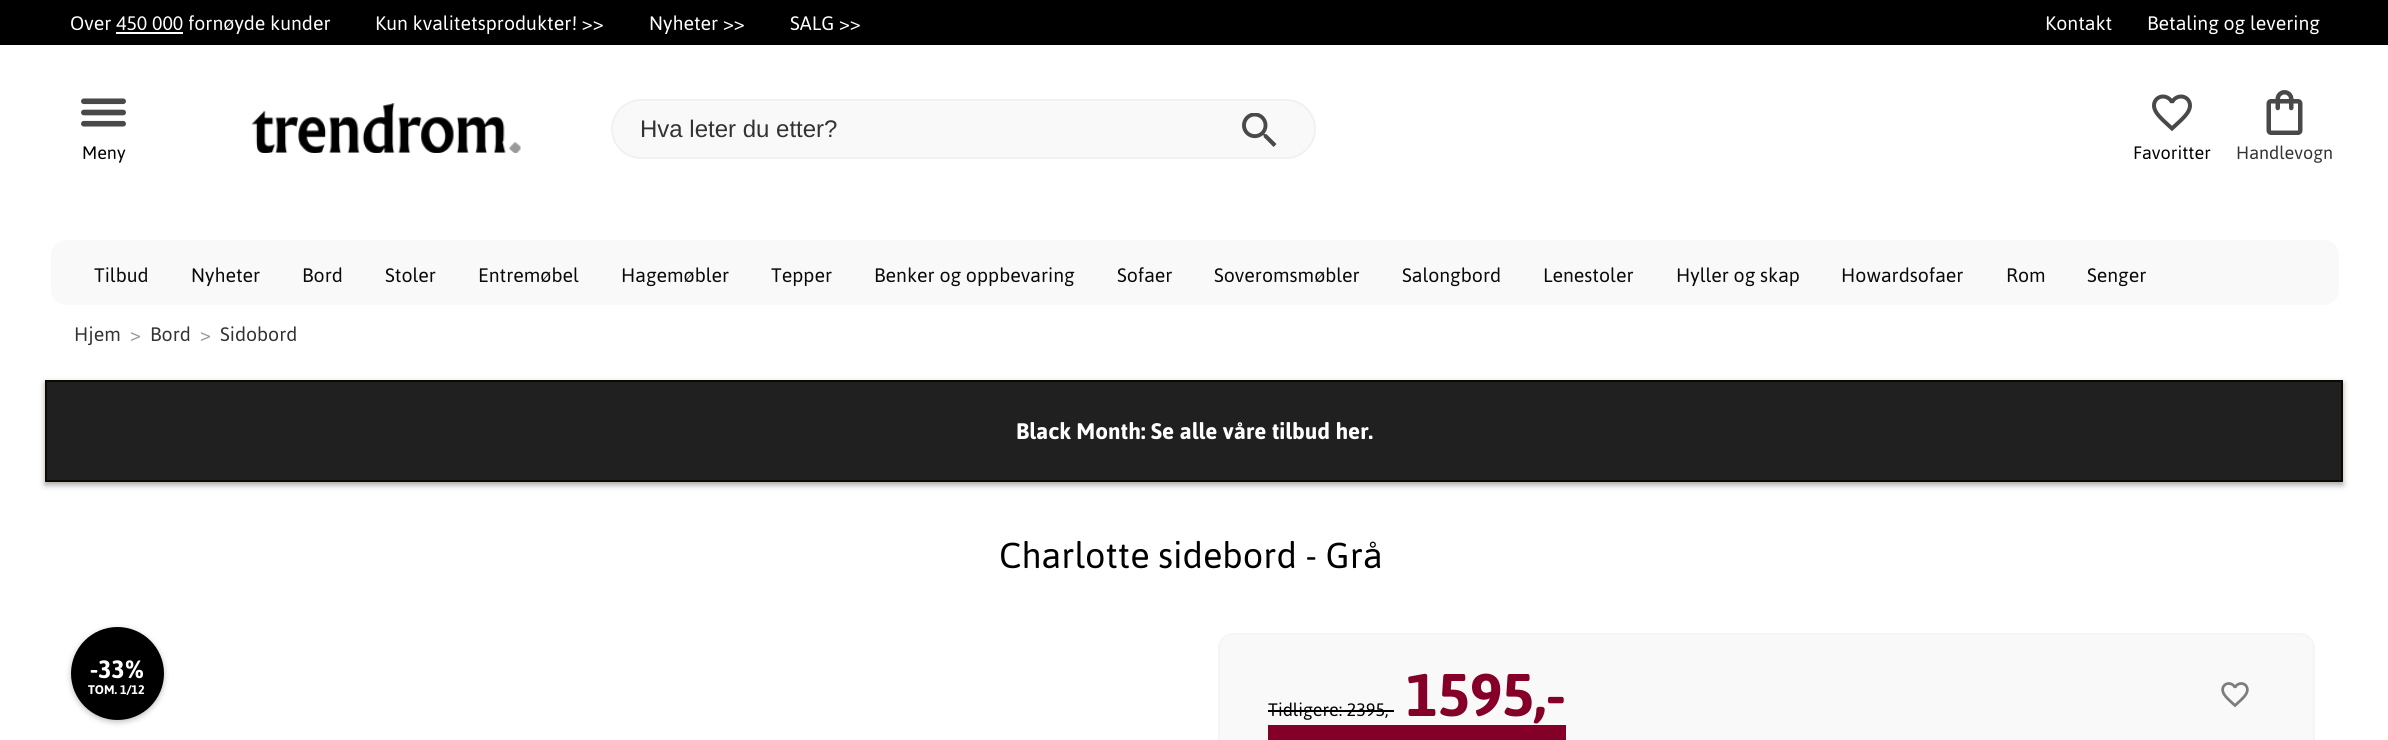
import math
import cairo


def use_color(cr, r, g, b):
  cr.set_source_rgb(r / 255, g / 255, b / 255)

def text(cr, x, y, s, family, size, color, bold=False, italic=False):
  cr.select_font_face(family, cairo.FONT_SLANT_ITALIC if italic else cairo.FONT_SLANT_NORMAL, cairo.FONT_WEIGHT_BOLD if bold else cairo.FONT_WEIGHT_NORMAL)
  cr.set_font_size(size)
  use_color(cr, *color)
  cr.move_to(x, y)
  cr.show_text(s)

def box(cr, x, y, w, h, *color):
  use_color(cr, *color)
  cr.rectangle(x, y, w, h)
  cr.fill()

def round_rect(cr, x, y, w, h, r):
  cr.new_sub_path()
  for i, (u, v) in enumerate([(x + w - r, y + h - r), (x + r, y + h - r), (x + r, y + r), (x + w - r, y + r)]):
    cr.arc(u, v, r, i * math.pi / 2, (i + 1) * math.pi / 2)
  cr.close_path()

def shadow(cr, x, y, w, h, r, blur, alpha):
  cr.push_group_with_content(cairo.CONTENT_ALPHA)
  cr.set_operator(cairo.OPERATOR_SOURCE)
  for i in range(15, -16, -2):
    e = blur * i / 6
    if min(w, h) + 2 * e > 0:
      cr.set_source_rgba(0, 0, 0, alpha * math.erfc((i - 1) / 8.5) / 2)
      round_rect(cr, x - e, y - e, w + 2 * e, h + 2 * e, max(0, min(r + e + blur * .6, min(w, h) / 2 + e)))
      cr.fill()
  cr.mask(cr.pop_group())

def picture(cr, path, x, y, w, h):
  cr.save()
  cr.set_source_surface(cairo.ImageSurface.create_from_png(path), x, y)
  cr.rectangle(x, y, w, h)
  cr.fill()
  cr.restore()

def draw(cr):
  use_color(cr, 255, 255, 255)
  cr.paint()
  box(cr, 0, 0, 2388, 45, 0, 0, 0)
  box(cr, 116, 32, 67, 2, 255, 255, 255)
  picture(cr, "img_01.png", 251, 103, 270, 50)
  use_color(cr, 249, 249, 249)
  round_rect(cr, 612, 100, 703, 58, 29)
  cr.fill_preserve()
  use_color(cr, 241, 241, 241)
  cr.stroke()
  picture(cr, "img_02.png", 1242, 113, 35, 34)
  picture(cr, "img_03.png", 81, 98, 45, 29)
  picture(cr, "img_04.png", 2152, 94, 40, 38)
  picture(cr, "img_05.png", 2266, 90, 37, 45)
  use_color(cr, 249, 249, 249)
  round_rect(cr, 51, 240, 2288, 65, 15)
  cr.fill()
  use_color(cr, 0, 0, 0)
  shadow(cr, 45, 383, 2298, 102, 0, 3, 0.35)
  use_color(cr, 32, 32, 32)
  cr.rectangle(46, 381, 2296, 100)
  cr.fill_preserve()
  use_color(cr, 15, 9, 2)
  cr.stroke()
  use_color(cr, 0, 0, 0)
  shadow(cr, 71, 629, 93, 93, 46.5, 3, 0.25)
  use_color(cr, 0, 0, 0)
  cr.arc(117.5, 673.5, 46.5, 0, 2 * math.pi)
  cr.fill()
  use_color(cr, 249, 249, 249)
  round_rect(cr, 1219, 634, 1095, 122, 14)
  cr.fill_preserve()
  use_color(cr, 245, 245, 245)
  cr.stroke()
  box(cr, 1268, 710, 126, 2, 0, 0, 0)
  box(cr, 1268, 725, 298, 15, 132, 0, 40)
  picture(cr, "img_06.png", 2221, 682, 28, 26)
  text(cr, 70, 30, "Over 450 000 fornøyde kunder", "Asap", 19.5, (255, 255, 255))
  text(cr, 375, 30, "Kun kvalitetsprodukter! >>", "Asap", 19.5, (255, 255, 255))
  text(cr, 649, 30, "Nyheter >>", "Asap", 19.5, (255, 255, 255))
  text(cr, 790, 30, "SALG >>", "Asap", 19.5, (255, 255, 255))
  text(cr, 2045, 30, "Kontakt", "Asap", 19.5, (255, 255, 255))
  text(cr, 2147, 30, "Betaling og levering", "Asap", 19.5, (255, 255, 255))
  text(cr, 640, 137, "Hva leter du etter?", "Liberation Sans", 24, (51, 51, 51))
  text(cr, 82, 159, "Meny", "Asap", 18, (0, 0, 0))
  text(cr, 2133, 159, "Favoritter", "Asap", 18, (0, 0, 0))
  text(cr, 2236, 159, "Handlevogn", "Asap", 18, (51, 51, 51))
  text(cr, 94, 282, "Tilbud", "Asap", 19.5, (9, 9, 9))
  text(cr, 191, 282, "Nyheter", "Asap", 19.5, (9, 9, 9))
  text(cr, 302, 282, "Bord", "Asap", 19.5, (9, 9, 9))
  text(cr, 385, 282, "Stoler", "Asap", 19.5, (9, 9, 9))
  text(cr, 478, 282, "Entremøbel", "Asap", 19.5, (9, 9, 9))
  text(cr, 621, 282, "Hagemøbler", "Asap", 19.5, (9, 9, 9))
  text(cr, 771, 282, "Tepper", "Asap", 19.5, (9, 9, 9))
  text(cr, 874, 282, "Benker og oppbevaring", "Asap", 19.5, (9, 9, 9))
  text(cr, 1117, 282, "Sofaer", "Asap", 19.5, (9, 9, 9))
  text(cr, 1214, 282, "Soveromsmøbler", "Asap", 19.5, (9, 9, 9))
  text(cr, 1402, 282, "Salongbord", "Asap", 19.5, (9, 9, 9))
  text(cr, 1543, 282, "Lenestoler", "Asap", 19.5, (9, 9, 9))
  text(cr, 1676, 282, "Hyller og skap", "Asap", 19.5, (9, 9, 9))
  text(cr, 1841, 282, "Howardsofaer", "Asap", 19.5, (9, 9, 9))
  text(cr, 2006, 282, "Rom", "Asap", 19.5, (9, 9, 9))
  text(cr, 2087, 282, "Senger", "Asap", 19.5, (9, 9, 9))
  text(cr, 74, 341, "Hjem", "Asap", 19.5, (51, 51, 51))
  text(cr, 130, 341, ">", "Asap", 19.5, (153, 153, 153))
  text(cr, 150, 341, "Bord", "Asap", 19.5, (51, 51, 51))
  text(cr, 200, 341, ">", "Asap", 19.5, (153, 153, 153))
  text(cr, 220, 341, "Sidobord", "Asap", 19.5, (51, 51, 51))
  text(cr, 1016, 439, "Black Month: Se alle våre tilbud her.", "Asap", 22.5, (255, 255, 255), bold=True)
  text(cr, 999, 568, "Charlotte sidebord - Grå", "Asap", 36, (0, 0, 0))
  text(cr, 90, 678, "-33%", "Asap", 25, (255, 255, 255), bold=True)
  text(cr, 88, 694, "TOM. 1/12", "Asap", 12.5, (255, 255, 255), bold=True)
  text(cr, 1268, 716, "Tidligere: 2395,", "Asap", 18, (0, 0, 0))
  text(cr, 1406, 716, "1595,-", "Asap", 60, (132, 0, 40), bold=True)


surface = cairo.ImageSurface(cairo.FORMAT_RGB24, 2388, 740)
cr = cairo.Context(surface)
options = cairo.FontOptions()
options.set_hint_metrics(cairo.HINT_METRICS_OFF)
options.set_hint_style(cairo.HINT_STYLE_NONE)
cr.set_font_options(options)
cr.set_miter_limit(4)
draw(cr)
surface.write_to_png("out.png")
